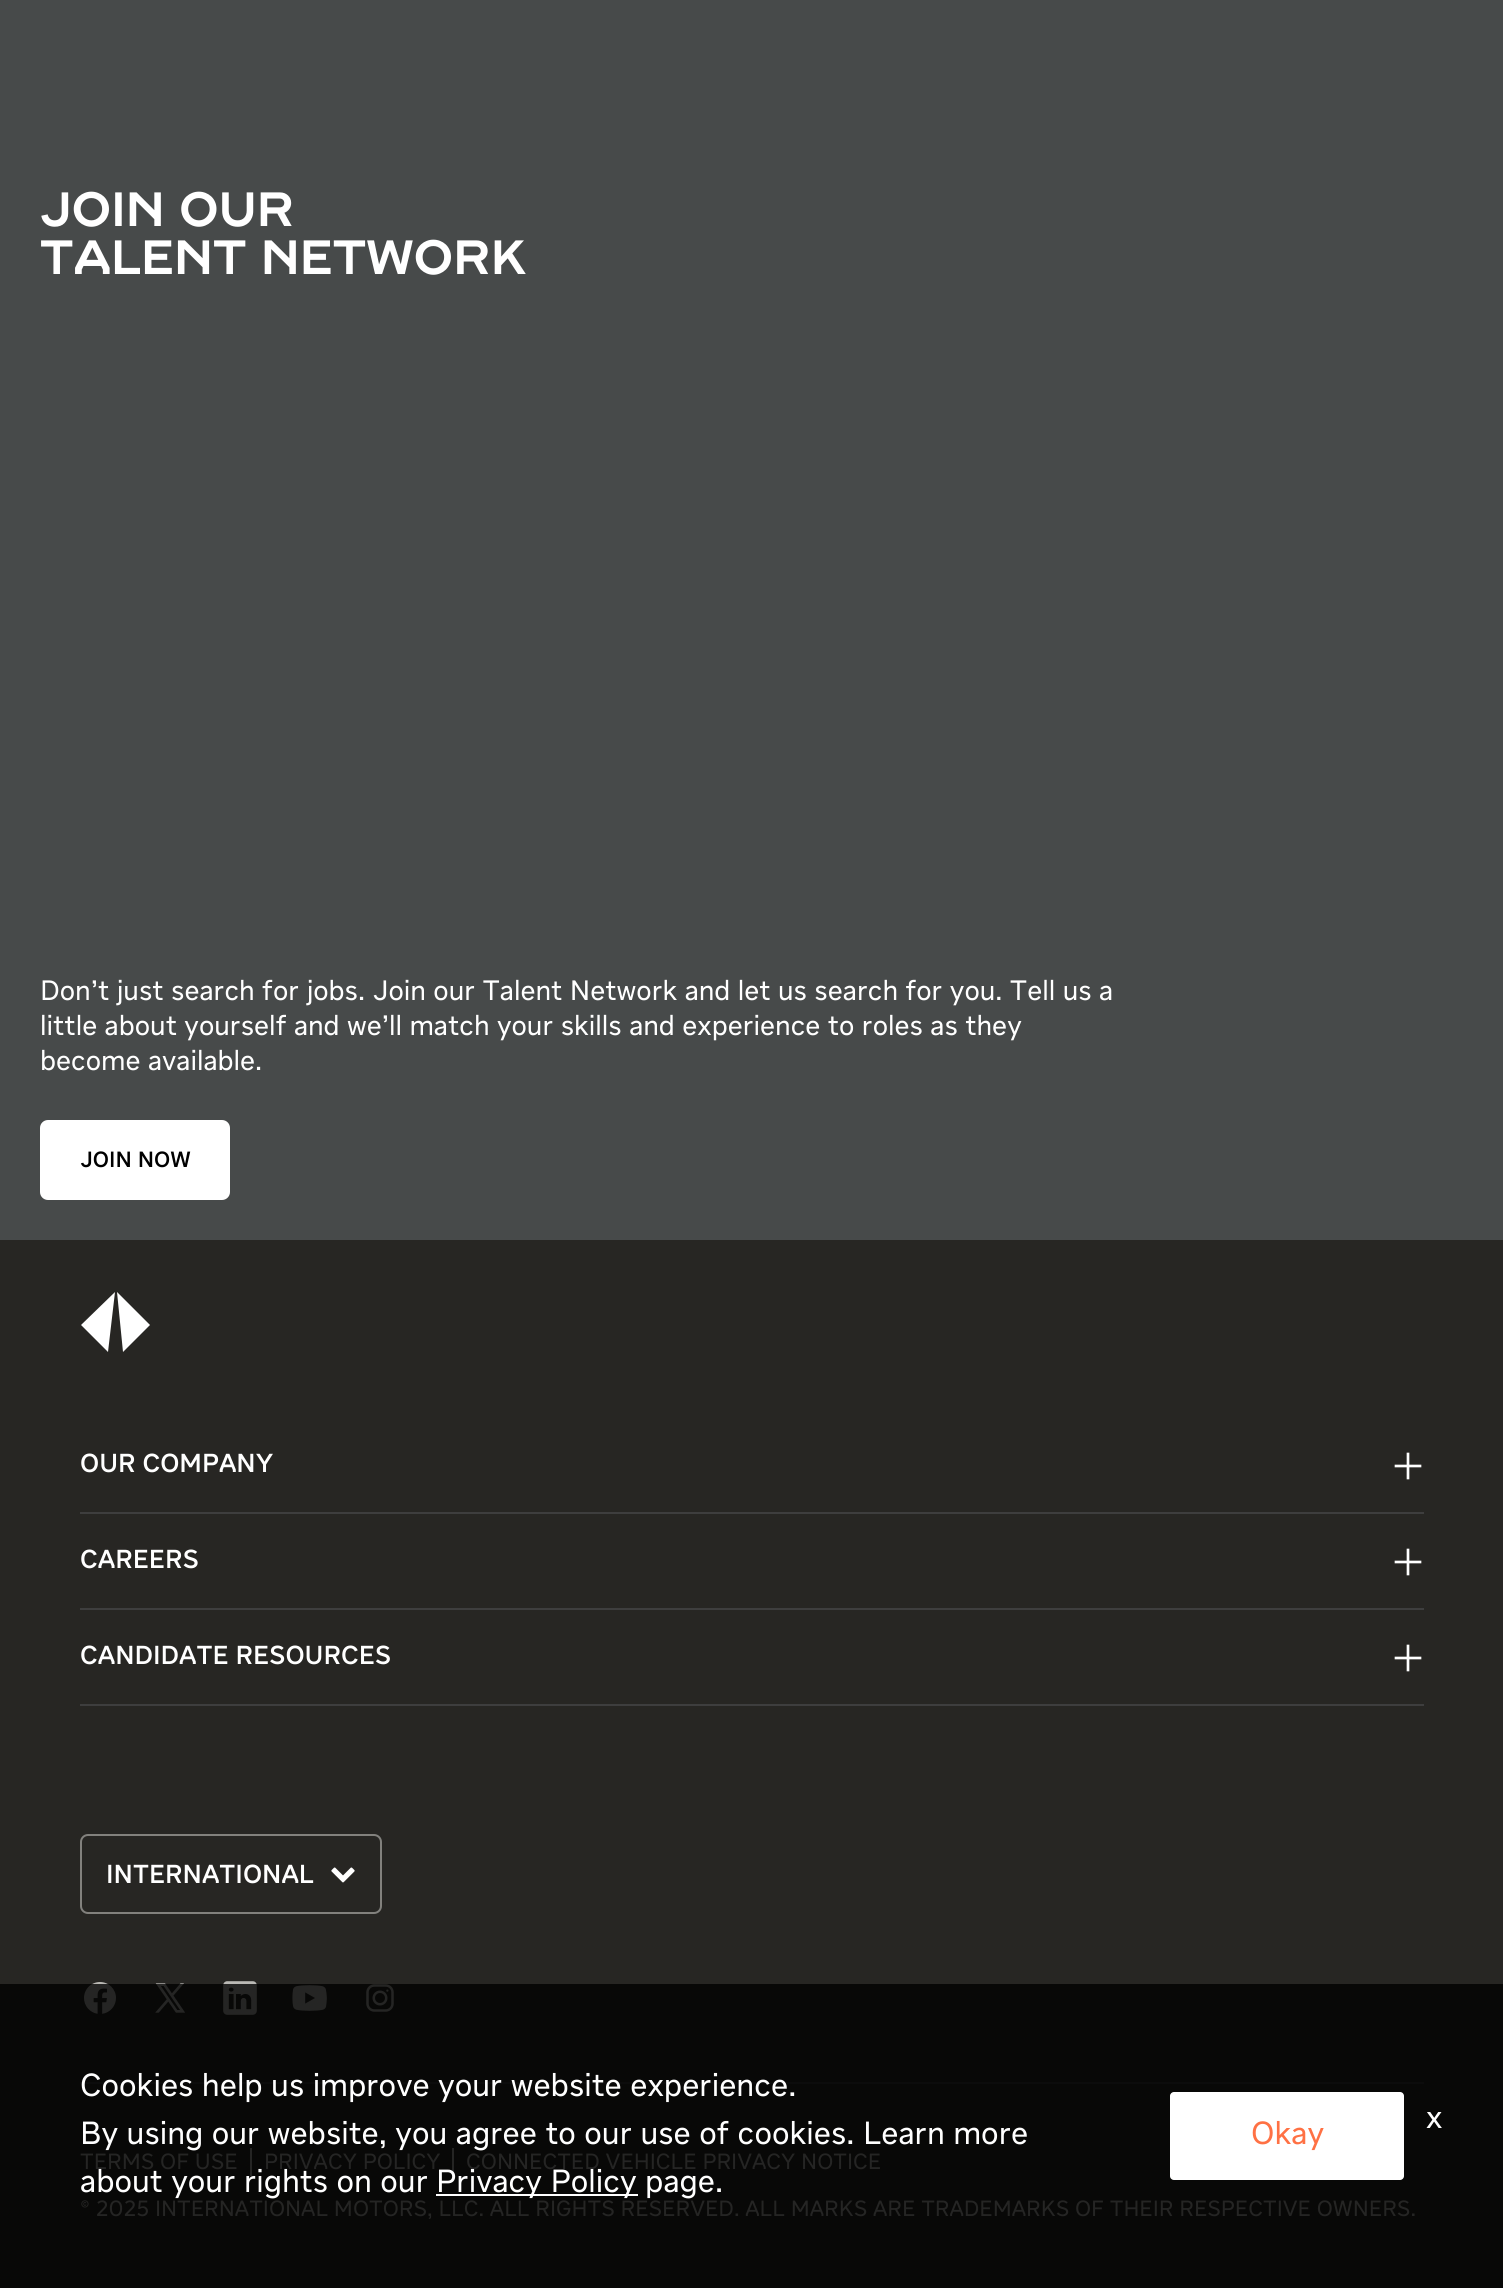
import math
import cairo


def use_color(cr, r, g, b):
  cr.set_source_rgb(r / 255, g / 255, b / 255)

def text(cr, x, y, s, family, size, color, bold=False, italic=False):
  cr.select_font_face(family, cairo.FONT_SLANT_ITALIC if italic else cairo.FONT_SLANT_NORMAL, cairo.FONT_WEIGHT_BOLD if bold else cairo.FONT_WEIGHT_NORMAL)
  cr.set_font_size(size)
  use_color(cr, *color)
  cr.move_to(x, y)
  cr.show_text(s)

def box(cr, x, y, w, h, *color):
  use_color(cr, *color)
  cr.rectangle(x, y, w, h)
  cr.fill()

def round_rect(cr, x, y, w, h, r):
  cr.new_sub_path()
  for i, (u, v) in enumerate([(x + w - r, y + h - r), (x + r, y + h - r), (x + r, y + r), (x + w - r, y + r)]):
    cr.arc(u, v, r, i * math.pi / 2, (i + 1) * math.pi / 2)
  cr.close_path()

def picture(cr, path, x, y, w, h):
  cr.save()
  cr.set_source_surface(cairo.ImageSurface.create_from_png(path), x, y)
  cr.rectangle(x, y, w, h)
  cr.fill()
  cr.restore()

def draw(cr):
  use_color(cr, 71, 74, 74)
  cr.paint()
  use_color(cr, 255, 255, 255)
  round_rect(cr, 40, 1120, 190, 80, 8)
  cr.fill()
  box(cr, 0, 1240, 1503, 744, 39, 38, 35)
  box(cr, 0, 1984, 1503, 304, 8, 8, 7)
  use_color(cr, 255, 255, 255)
  cr.new_path()
  cr.move_to(115, 1292)
  cr.line_to(81, 1325)
  cr.line_to(108, 1352)
  cr.close_path()
  cr.fill()
  cr.new_path()
  cr.move_to(117, 1292)
  cr.line_to(150, 1325)
  cr.line_to(123, 1352)
  cr.close_path()
  cr.fill()
  box(cr, 80, 1512, 1344, 2, 62, 62, 62)
  picture(cr, "img_01.png", 1394, 1452, 28, 28)
  box(cr, 80, 1608, 1344, 2, 62, 62, 62)
  picture(cr, "img_01.png", 1394, 1548, 28, 28)
  box(cr, 80, 1704, 1344, 2, 62, 62, 62)
  picture(cr, "img_01.png", 1394, 1644, 28, 28)
  round_rect(cr, 81, 1835, 300, 78, 7)
  use_color(cr, 130, 129, 125)
  cr.stroke()
  picture(cr, "img_02.png", 331, 1867, 24, 16)
  picture(cr, "img_03.png", 84, 1982, 32, 32)
  picture(cr, "img_04.png", 155, 1983, 30, 30)
  picture(cr, "img_05.png", 223, 1981, 34, 34)
  picture(cr, "img_06.png", 292, 1985, 35, 26)
  picture(cr, "img_07.png", 366, 1984, 28, 28)
  box(cr, 80, 2082, 1344, 2, 12, 12, 12)
  box(cr, 250, 2148, 2, 28, 37, 37, 36)
  box(cr, 452, 2148, 2, 28, 37, 37, 36)
  box(cr, 436, 2194, 202, 2, 255, 255, 255)
  round_rect(cr, 1170, 2092, 234, 88, 4)
  cr.fill()
  text(cr, 40, 226, "JOIN OUR", "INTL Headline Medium", 48, (255, 255, 255))
  text(cr, 40, 274, "TALENT NETWORK", "INTL Headline Medium", 48, (255, 255, 255))
  text(cr, 40, 1000, "Don’t just search for jobs. Join our Talent Network and let us search for you. Tell us a", "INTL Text", 28, (255, 255, 255))
  text(cr, 40, 1035, "little about yourself and we’ll match your skills and experience to roles as they", "INTL Text", 28, (255, 255, 255))
  text(cr, 40, 1070, "become available.", "INTL Text", 28, (255, 255, 255))
  text(cr, 80, 1167, "JOIN NOW", "INTL Text Medium", 22, (0, 0, 0))
  text(cr, 80, 1472, "OUR COMPANY", "INTL Text Medium", 26, (255, 255, 255))
  text(cr, 80, 1568, "CAREERS", "INTL Text Medium", 26, (255, 255, 255))
  text(cr, 80, 1664, "CANDIDATE RESOURCES", "INTL Text Medium", 26, (255, 255, 255))
  text(cr, 106, 1883, "INTERNATIONAL", "INTL Text Medium", 26, (255, 255, 255))
  text(cr, 80, 2169, "TERMS OF USE", "INTL Text", 22, (37, 37, 36))
  text(cr, 264, 2169, "PRIVACY POLICY", "INTL Text", 22, (37, 37, 36))
  text(cr, 466, 2169, "CONNECTED VEHICLE PRIVACY NOTICE", "INTL Text", 22, (37, 37, 36))
  text(cr, 80, 2216, "© 2025 INTERNATIONAL MOTORS, LLC. ALL RIGHTS RESERVED. ALL MARKS ARE TRADEMARKS OF THEIR RESPECTIVE OWNERS.", "INTL Text", 22, (37, 37, 36))
  text(cr, 80, 2096, "Cookies help us improve your website experience.", "INTL Text", 32, (255, 255, 255))
  text(cr, 80, 2144, "By using our website, you agree to our use of cookies. Learn more", "INTL Text", 32, (255, 255, 255))
  text(cr, 80, 2192, "about your rights on our", "INTL Text", 32, (255, 255, 255))
  text(cr, 436, 2192, "Privacy Policy page.", "INTL Text", 32, (255, 255, 255))
  text(cr, 1251, 2144, "Okay", "INTL Text", 32, (255, 113, 68))
  text(cr, 1426, 2128, "x", "INTL Text", 32, (255, 255, 255))


surface = cairo.ImageSurface(cairo.FORMAT_RGB24, 1503, 2288)
cr = cairo.Context(surface)
options = cairo.FontOptions()
options.set_hint_metrics(cairo.HINT_METRICS_OFF)
options.set_hint_style(cairo.HINT_STYLE_NONE)
cr.set_font_options(options)
cr.set_miter_limit(4)
draw(cr)
surface.write_to_png("out.png")
